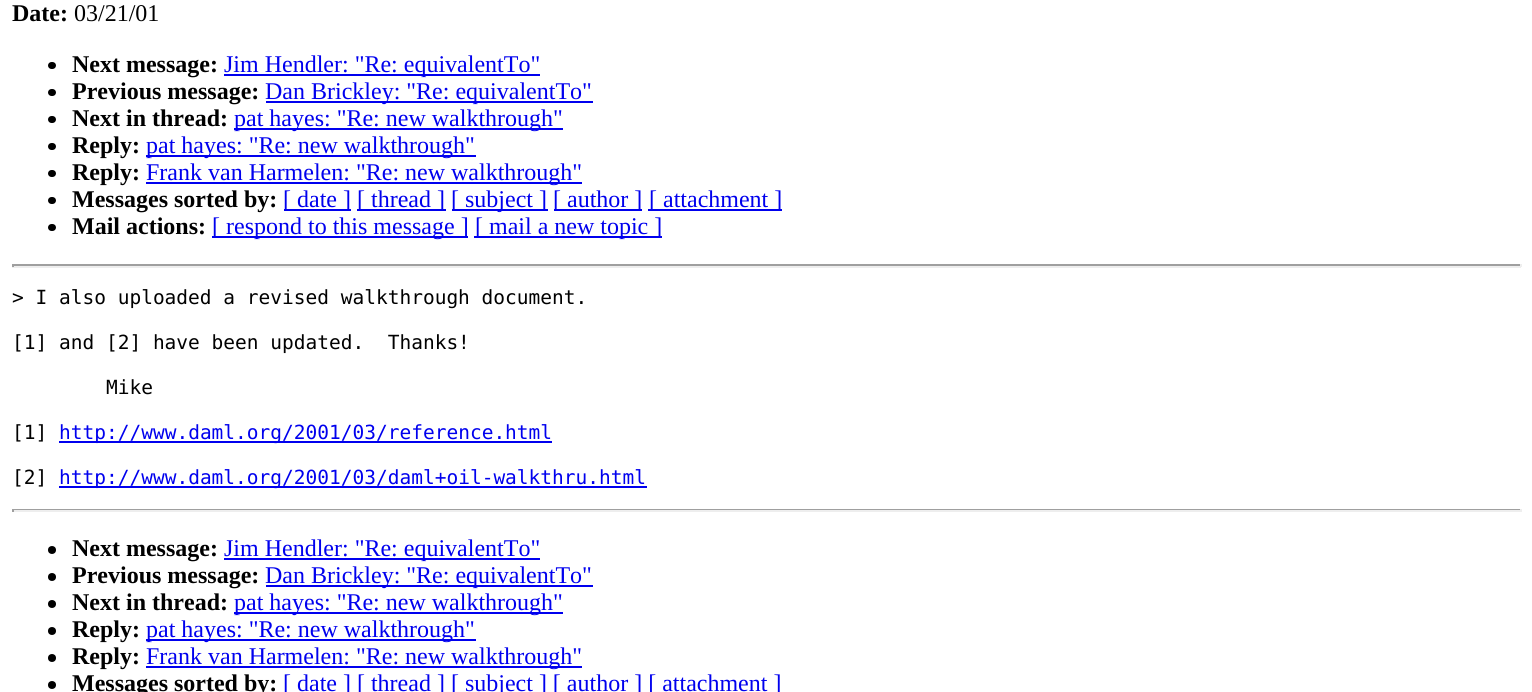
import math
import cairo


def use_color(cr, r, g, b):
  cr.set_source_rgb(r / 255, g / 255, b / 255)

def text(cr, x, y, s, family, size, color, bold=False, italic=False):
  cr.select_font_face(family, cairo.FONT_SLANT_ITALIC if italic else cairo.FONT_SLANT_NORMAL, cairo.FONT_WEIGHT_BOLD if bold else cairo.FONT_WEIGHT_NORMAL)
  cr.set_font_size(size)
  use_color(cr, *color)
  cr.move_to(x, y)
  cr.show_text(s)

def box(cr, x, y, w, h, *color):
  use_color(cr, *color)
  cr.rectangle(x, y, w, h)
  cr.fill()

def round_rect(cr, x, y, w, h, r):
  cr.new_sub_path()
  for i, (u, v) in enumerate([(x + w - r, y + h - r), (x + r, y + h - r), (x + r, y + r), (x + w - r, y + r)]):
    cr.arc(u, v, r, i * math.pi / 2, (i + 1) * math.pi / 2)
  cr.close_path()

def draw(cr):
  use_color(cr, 255, 255, 255)
  cr.paint()
  use_color(cr, 0, 0, 0)
  round_rect(cr, 48, 62, 8, 7, 3.5)
  cr.fill()
  box(cr, 224, 74, 316, 2, 0, 0, 238)
  use_color(cr, 0, 0, 0)
  round_rect(cr, 48, 89, 8, 7, 3.5)
  cr.fill()
  box(cr, 266, 101, 327, 2, 0, 0, 238)
  use_color(cr, 0, 0, 0)
  round_rect(cr, 48, 116, 8, 7, 3.5)
  cr.fill()
  box(cr, 234, 128, 329, 2, 0, 0, 238)
  use_color(cr, 0, 0, 0)
  round_rect(cr, 48, 143, 8, 7, 3.5)
  cr.fill()
  box(cr, 146, 155, 330, 2, 0, 0, 238)
  use_color(cr, 0, 0, 0)
  round_rect(cr, 48, 170, 8, 7, 3.5)
  cr.fill()
  box(cr, 146, 182, 436, 2, 0, 0, 238)
  use_color(cr, 0, 0, 0)
  round_rect(cr, 48, 197, 8, 7, 3.5)
  cr.fill()
  box(cr, 284, 209, 67, 2, 0, 0, 238)
  box(cr, 357, 209, 89, 2, 0, 0, 238)
  box(cr, 452, 209, 96, 2, 0, 0, 238)
  box(cr, 554, 209, 88, 2, 0, 0, 238)
  box(cr, 648, 209, 134, 2, 0, 0, 238)
  use_color(cr, 0, 0, 0)
  round_rect(cr, 48, 224, 8, 7, 3.5)
  cr.fill()
  box(cr, 212, 236, 256, 2, 0, 0, 238)
  box(cr, 474, 236, 188, 2, 0, 0, 238)
  box(cr, 12, 264, 1509, 2, 159, 159, 159)
  box(cr, 1520, 264, 2, 3, 238, 238, 238)
  box(cr, 12, 266, 1509, 2, 238, 238, 238)
  box(cr, 12, 264, 2, 3, 159, 159, 159)
  box(cr, 59, 441, 493, 2, 0, 0, 238)
  box(cr, 59, 486, 588, 2, 0, 0, 238)
  box(cr, 12, 509, 1509, 1, 159, 159, 159)
  box(cr, 1520, 509, 2, 3, 238, 238, 238)
  box(cr, 12, 510, 1509, 2, 238, 238, 238)
  box(cr, 12, 509, 2, 3, 159, 159, 159)
  use_color(cr, 0, 0, 0)
  cr.arc(52, 550, 4, 0, 2 * math.pi)
  cr.fill()
  box(cr, 224, 558, 316, 2, 0, 0, 238)
  use_color(cr, 0, 0, 0)
  cr.arc(52, 577, 4, 0, 2 * math.pi)
  cr.fill()
  box(cr, 266, 585, 327, 2, 0, 0, 238)
  use_color(cr, 0, 0, 0)
  cr.arc(52, 604, 4, 0, 2 * math.pi)
  cr.fill()
  box(cr, 234, 612, 329, 2, 0, 0, 238)
  use_color(cr, 0, 0, 0)
  cr.arc(52, 631, 4, 0, 2 * math.pi)
  cr.fill()
  box(cr, 146, 639, 330, 2, 0, 0, 238)
  use_color(cr, 0, 0, 0)
  cr.arc(52, 658, 4, 0, 2 * math.pi)
  cr.fill()
  box(cr, 146, 666, 436, 2, 0, 0, 238)
  use_color(cr, 0, 0, 0)
  cr.arc(52, 685, 4, 0, 2 * math.pi)
  cr.fill()
  text(cr, 12, 21, "Date:", "Liberation Serif", 24, (0, 0, 0), bold=True)
  text(cr, 74, 21, "03/21/01", "Liberation Serif", 24, (0, 0, 0))
  text(cr, 72, 72, "Next message:", "Liberation Serif", 24, (0, 0, 0), bold=True)
  text(cr, 224, 72, "Jim Hendler: \"Re: equivalentTo\"", "Liberation Serif", 24, (0, 0, 238))
  text(cr, 72, 99, "Previous message:", "Liberation Serif", 24, (0, 0, 0), bold=True)
  text(cr, 265, 99, "Dan Brickley: \"Re: equivalentTo\"", "Liberation Serif", 24, (0, 0, 238))
  text(cr, 72, 126, "Next in thread:", "Liberation Serif", 24, (0, 0, 0), bold=True)
  text(cr, 234, 126, "pat hayes: \"Re: new walkthrough\"", "Liberation Serif", 24, (0, 0, 238))
  text(cr, 72, 153, "Reply:", "Liberation Serif", 24, (0, 0, 0), bold=True)
  text(cr, 146, 153, "pat hayes: \"Re: new walkthrough\"", "Liberation Serif", 24, (0, 0, 238))
  text(cr, 72, 180, "Reply:", "Liberation Serif", 24, (0, 0, 0), bold=True)
  text(cr, 146, 180, "Frank van Harmelen: \"Re: new walkthrough\"", "Liberation Serif", 24, (0, 0, 238))
  text(cr, 72, 207, "Messages sorted by:", "Liberation Serif", 24, (0, 0, 0), bold=True)
  text(cr, 283, 207, "[ date ]", "Liberation Serif", 24, (0, 0, 238))
  text(cr, 357, 207, "[ thread ]", "Liberation Serif", 24, (0, 0, 238))
  text(cr, 451, 207, "[ subject ]", "Liberation Serif", 24, (0, 0, 238))
  text(cr, 553, 207, "[ author ]", "Liberation Serif", 24, (0, 0, 238))
  text(cr, 649, 207, "[ attachment ]", "Liberation Serif", 24, (0, 0, 238))
  text(cr, 72, 234, "Mail actions:", "Liberation Serif", 24, (0, 0, 0), bold=True)
  text(cr, 212, 234, "[ respond to this message ]", "Liberation Serif", 24, (0, 0, 238))
  text(cr, 475, 234, "[ mail a new topic ]", "Liberation Serif", 24, (0, 0, 238))
  text(cr, 12, 304, "> I also uploaded a revised walkthrough document.", "DejaVu Sans Mono", 19.5, (0, 0, 0))
  text(cr, 12, 349, "[1] and [2] have been updated.  Thanks!", "DejaVu Sans Mono", 19.5, (0, 0, 0))
  text(cr, 106, 394, "Mike", "DejaVu Sans Mono", 19.5, (0, 0, 0))
  text(cr, 12, 439, "[1]", "DejaVu Sans Mono", 19.5, (0, 0, 0))
  text(cr, 59, 439, "http://www.daml.org/2001/03/reference.html", "DejaVu Sans Mono", 19.5, (0, 0, 238))
  text(cr, 12, 484, "[2]", "DejaVu Sans Mono", 19.5, (0, 0, 0))
  text(cr, 59, 484, "http://www.daml.org/2001/03/daml+oil-walkthru.html", "DejaVu Sans Mono", 19.5, (0, 0, 238))
  text(cr, 72, 556, "Next message:", "Liberation Serif", 24, (0, 0, 0), bold=True)
  text(cr, 224, 556, "Jim Hendler: \"Re: equivalentTo\"", "Liberation Serif", 24, (0, 0, 238))
  text(cr, 72, 583, "Previous message:", "Liberation Serif", 24, (0, 0, 0), bold=True)
  text(cr, 265, 583, "Dan Brickley: \"Re: equivalentTo\"", "Liberation Serif", 24, (0, 0, 238))
  text(cr, 72, 610, "Next in thread:", "Liberation Serif", 24, (0, 0, 0), bold=True)
  text(cr, 234, 610, "pat hayes: \"Re: new walkthrough\"", "Liberation Serif", 24, (0, 0, 238))
  text(cr, 72, 637, "Reply:", "Liberation Serif", 24, (0, 0, 0), bold=True)
  text(cr, 146, 637, "pat hayes: \"Re: new walkthrough\"", "Liberation Serif", 24, (0, 0, 238))
  text(cr, 72, 664, "Reply:", "Liberation Serif", 24, (0, 0, 0), bold=True)
  text(cr, 146, 664, "Frank van Harmelen: \"Re: new walkthrough\"", "Liberation Serif", 24, (0, 0, 238))
  text(cr, 72, 691, "Messages sorted by:", "Liberation Serif", 24, (0, 0, 0), bold=True)
  text(cr, 283, 691, "[ date ] [ thread ] [ subject ] [ author ] [ attachment ]", "Liberation Serif", 24, (0, 0, 238))


surface = cairo.ImageSurface(cairo.FORMAT_RGB24, 1532, 692)
cr = cairo.Context(surface)
options = cairo.FontOptions()
options.set_hint_metrics(cairo.HINT_METRICS_OFF)
options.set_hint_style(cairo.HINT_STYLE_NONE)
cr.set_font_options(options)
cr.set_miter_limit(4)
draw(cr)
surface.write_to_png("out.png")
